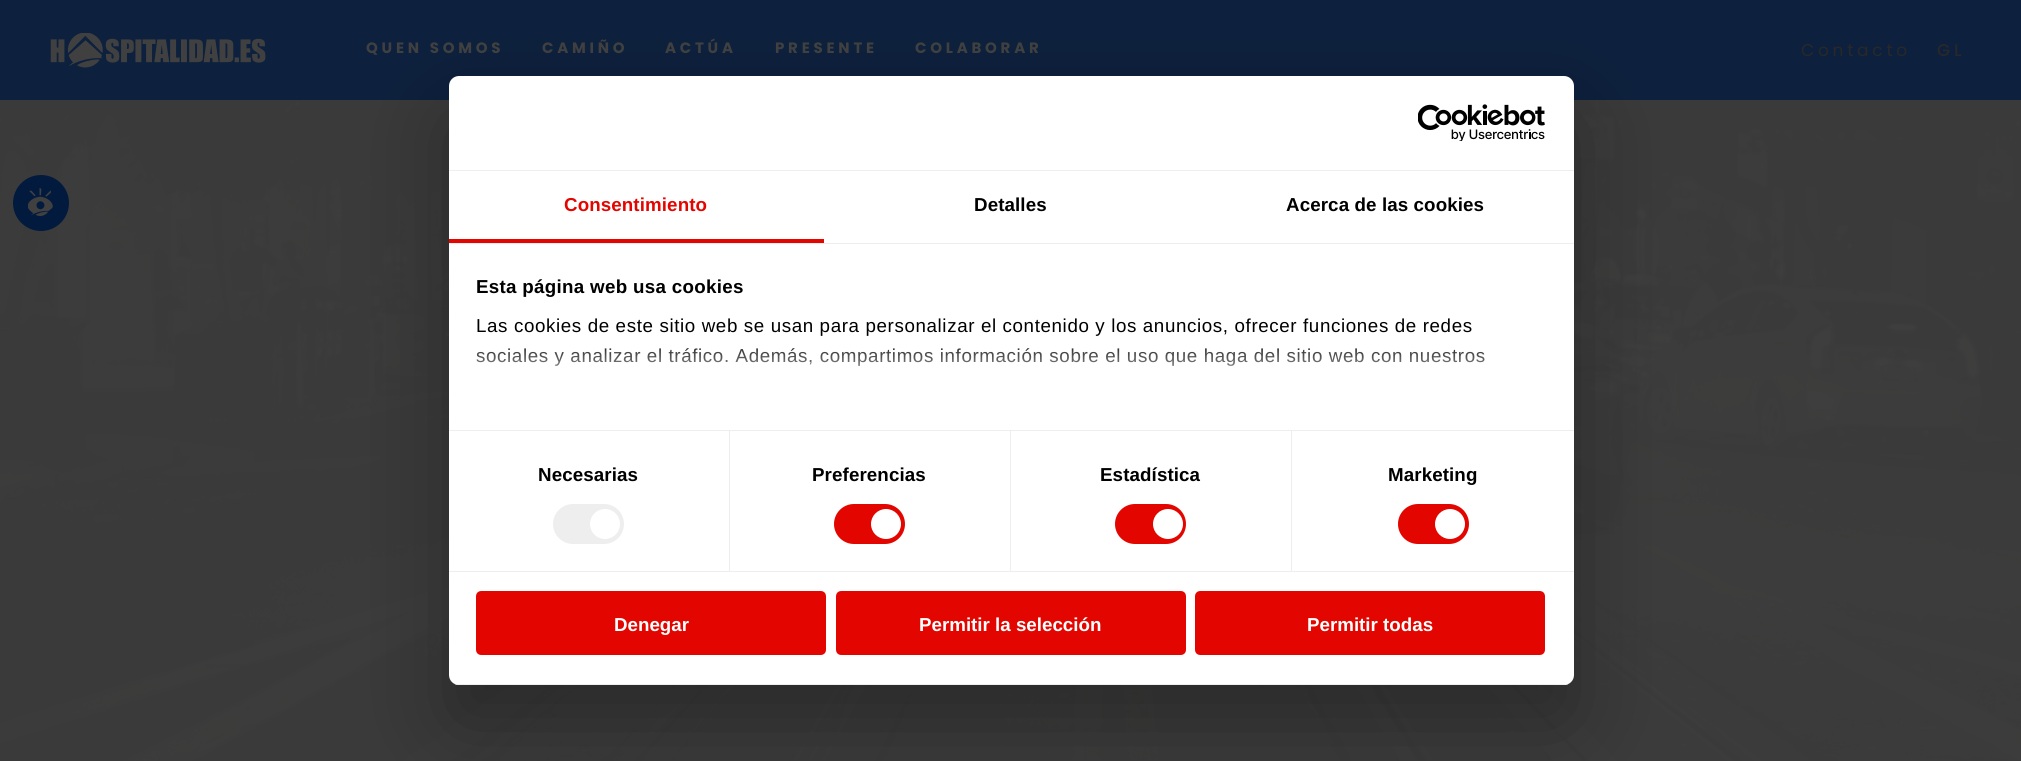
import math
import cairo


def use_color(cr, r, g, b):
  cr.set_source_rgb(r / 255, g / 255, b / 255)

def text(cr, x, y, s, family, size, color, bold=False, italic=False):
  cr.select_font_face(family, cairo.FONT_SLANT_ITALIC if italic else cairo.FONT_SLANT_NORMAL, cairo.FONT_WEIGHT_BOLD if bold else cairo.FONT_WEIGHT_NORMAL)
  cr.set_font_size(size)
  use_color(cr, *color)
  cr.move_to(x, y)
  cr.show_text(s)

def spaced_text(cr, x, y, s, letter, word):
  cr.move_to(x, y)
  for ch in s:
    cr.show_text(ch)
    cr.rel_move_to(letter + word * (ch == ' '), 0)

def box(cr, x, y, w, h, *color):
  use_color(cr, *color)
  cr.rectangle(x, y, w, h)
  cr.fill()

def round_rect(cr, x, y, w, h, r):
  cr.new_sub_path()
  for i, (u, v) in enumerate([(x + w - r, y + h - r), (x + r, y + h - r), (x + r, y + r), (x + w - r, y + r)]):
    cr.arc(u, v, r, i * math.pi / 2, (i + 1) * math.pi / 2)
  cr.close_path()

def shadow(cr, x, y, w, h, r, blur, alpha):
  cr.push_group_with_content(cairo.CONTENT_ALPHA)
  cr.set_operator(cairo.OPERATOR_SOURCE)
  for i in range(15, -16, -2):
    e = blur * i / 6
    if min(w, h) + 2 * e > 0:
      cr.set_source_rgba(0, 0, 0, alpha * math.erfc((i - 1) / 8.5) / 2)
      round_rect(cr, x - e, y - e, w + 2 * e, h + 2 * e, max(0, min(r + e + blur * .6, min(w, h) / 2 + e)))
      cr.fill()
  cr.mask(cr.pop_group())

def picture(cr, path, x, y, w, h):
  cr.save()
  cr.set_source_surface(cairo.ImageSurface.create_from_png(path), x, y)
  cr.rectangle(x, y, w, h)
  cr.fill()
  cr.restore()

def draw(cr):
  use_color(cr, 62, 62, 62)
  cr.paint()
  picture(cr, "img_01.png", 0, 0, 2021, 761)
  cr.set_source_rgba(0.008, 0.102, 0.243, 0.8)
  cr.rectangle(0, 0, 2021, 100)
  cr.fill()
  picture(cr, "img_02.png", 50, 33, 216, 35)
  use_color(cr, 2, 26, 62)
  cr.arc(41, 203, 28, 0, 2 * math.pi)
  cr.fill()
  picture(cr, "img_03.png", 28, 188, 25, 28)
  use_color(cr, 0, 0, 0)
  shadow(cr, 449, 116, 1125, 609, 10, 42.5, 0.3)
  use_color(cr, 255, 255, 255)
  round_rect(cr, 449, 76, 1125, 609, 10)
  cr.fill()
  box(cr, 449, 170, 1125, 1, 238, 238, 238)
  picture(cr, "img_04.png", 1418, 104, 127, 37)
  box(cr, 449, 243, 1125, 1, 238, 238, 238)
  box(cr, 449, 239, 375, 4, 227, 6, 0)
  box(cr, 449, 430, 1125, 1, 238, 238, 238)
  box(cr, 449, 571, 1125, 1, 238, 238, 238)
  box(cr, 729, 431, 1, 140, 238, 238, 238)
  round_rect(cr, 553, 504, 71, 40, 20)
  cr.fill()
  use_color(cr, 255, 255, 255)
  cr.arc(605, 524, 15, 0, 2 * math.pi)
  cr.fill()
  box(cr, 1010, 431, 1, 140, 238, 238, 238)
  use_color(cr, 227, 6, 0)
  round_rect(cr, 834, 504, 71, 40, 20)
  cr.fill()
  use_color(cr, 255, 255, 255)
  cr.arc(886, 524, 15, 0, 2 * math.pi)
  cr.fill()
  box(cr, 1291, 431, 1, 140, 238, 238, 238)
  use_color(cr, 227, 6, 0)
  round_rect(cr, 1115, 504, 71, 40, 20)
  cr.fill()
  use_color(cr, 255, 255, 255)
  cr.arc(1168, 524, 15, 0, 2 * math.pi)
  cr.fill()
  use_color(cr, 227, 6, 0)
  round_rect(cr, 1398, 504, 71, 40, 20)
  cr.fill()
  use_color(cr, 255, 255, 255)
  cr.arc(1450, 524, 15, 0, 2 * math.pi)
  cr.fill()
  cr.save()
  round_rect(cr, 449, 76, 1125, 609, 10)
  cr.clip()
  box(cr, 449, 684, 1125, 1, 238, 238, 238)
  cr.restore()
  use_color(cr, 227, 6, 0)
  round_rect(cr, 477.5, 592.5, 347, 61, 3.5)
  cr.fill_preserve()
  cr.set_line_width(3)
  cr.stroke()
  round_rect(cr, 837.5, 592.5, 347, 61, 3.5)
  cr.fill_preserve()
  cr.stroke()
  round_rect(cr, 1196.5, 592.5, 347, 61, 3.5)
  cr.fill_preserve()
  cr.stroke()
  cr.select_font_face("Poppins", cairo.FONT_SLANT_NORMAL, cairo.FONT_WEIGHT_BOLD)
  cr.set_font_size(15)
  use_color(cr, 64, 64, 64)
  spaced_text(cr, 366, 53, "QUEN SOMOS", 3.75, 0)
  spaced_text(cr, 542, 53, "CAMIÑO", 3.75, 0)
  spaced_text(cr, 665, 53, "ACTÚA", 3.75, 0)
  spaced_text(cr, 775, 53, "PRESENTE", 3.75, 0)
  spaced_text(cr, 915, 53, "COLABORAR", 3.75, 0)
  cr.select_font_face("Poppins")
  cr.set_font_size(17)
  use_color(cr, 40, 40, 40)
  spaced_text(cr, 1801, 56, "Contacto", 3.75, 0)
  cr.select_font_face("Poppins Medium")
  spaced_text(cr, 1937, 56, "GL", 3.75, 0)
  cr.select_font_face("Liberation Sans", cairo.FONT_SLANT_NORMAL, cairo.FONT_WEIGHT_BOLD)
  cr.set_font_size(18.75)
  use_color(cr, 227, 6, 0)
  spaced_text(cr, 564, 211, "Consentimiento", 0.1, 0)
  use_color(cr, 0, 0, 0)
  spaced_text(cr, 974, 211, "Detalles", 0.1, 0)
  spaced_text(cr, 1286, 211, "Acerca de las cookies", 0.1, 0)
  spaced_text(cr, 476, 293, "Esta página web usa cookies", 0.3, 0)
  cr.select_font_face("Liberation Sans")
  spaced_text(cr, 476, 332, "Las cookies de este sitio web se usan para personalizar el contenido y los anuncios, ofrecer funciones de redes", 0.62, 0)
  spaced_text(cr, 476, 362, "sociales y analizar el tráfico. Además, compartimos información sobre el uso que haga del sitio web con nuestros", 0.62, 0)
  gradient = cairo.LinearGradient(998, 431, 998, 337)
  gradient.add_color_stop_rgba(0, 1, 1, 1, 1)
  gradient.add_color_stop_rgba(0.5, 1, 1, 1, 0.8)
  gradient.add_color_stop_rgba(1, 1, 1, 1, 0)
  cr.set_source(gradient)
  cr.rectangle(476, 348, 1009, 18)
  cr.fill()
  cr.select_font_face("Liberation Sans", cairo.FONT_SLANT_NORMAL, cairo.FONT_WEIGHT_BOLD)
  use_color(cr, 0, 0, 0)
  spaced_text(cr, 538, 481, "Necesarias", 0.1, 0)
  spaced_text(cr, 812, 481, "Preferencias", 0.1, 0)
  spaced_text(cr, 1100, 481, "Estadística", 0.1, 0)
  spaced_text(cr, 1388, 481, "Marketing", 0.1, 0)
  text(cr, 614, 631, "Denegar", "Liberation Sans", 18.75, (255, 255, 255), bold=True)
  text(cr, 919, 631, "Permitir la selección", "Liberation Sans", 18.75, (255, 255, 255), bold=True)
  text(cr, 1307, 631, "Permitir todas", "Liberation Sans", 18.75, (255, 255, 255), bold=True)


surface = cairo.ImageSurface(cairo.FORMAT_RGB24, 2021, 761)
cr = cairo.Context(surface)
options = cairo.FontOptions()
options.set_hint_metrics(cairo.HINT_METRICS_OFF)
options.set_hint_style(cairo.HINT_STYLE_NONE)
cr.set_font_options(options)
cr.set_miter_limit(4)
draw(cr)
surface.write_to_png("out.png")
